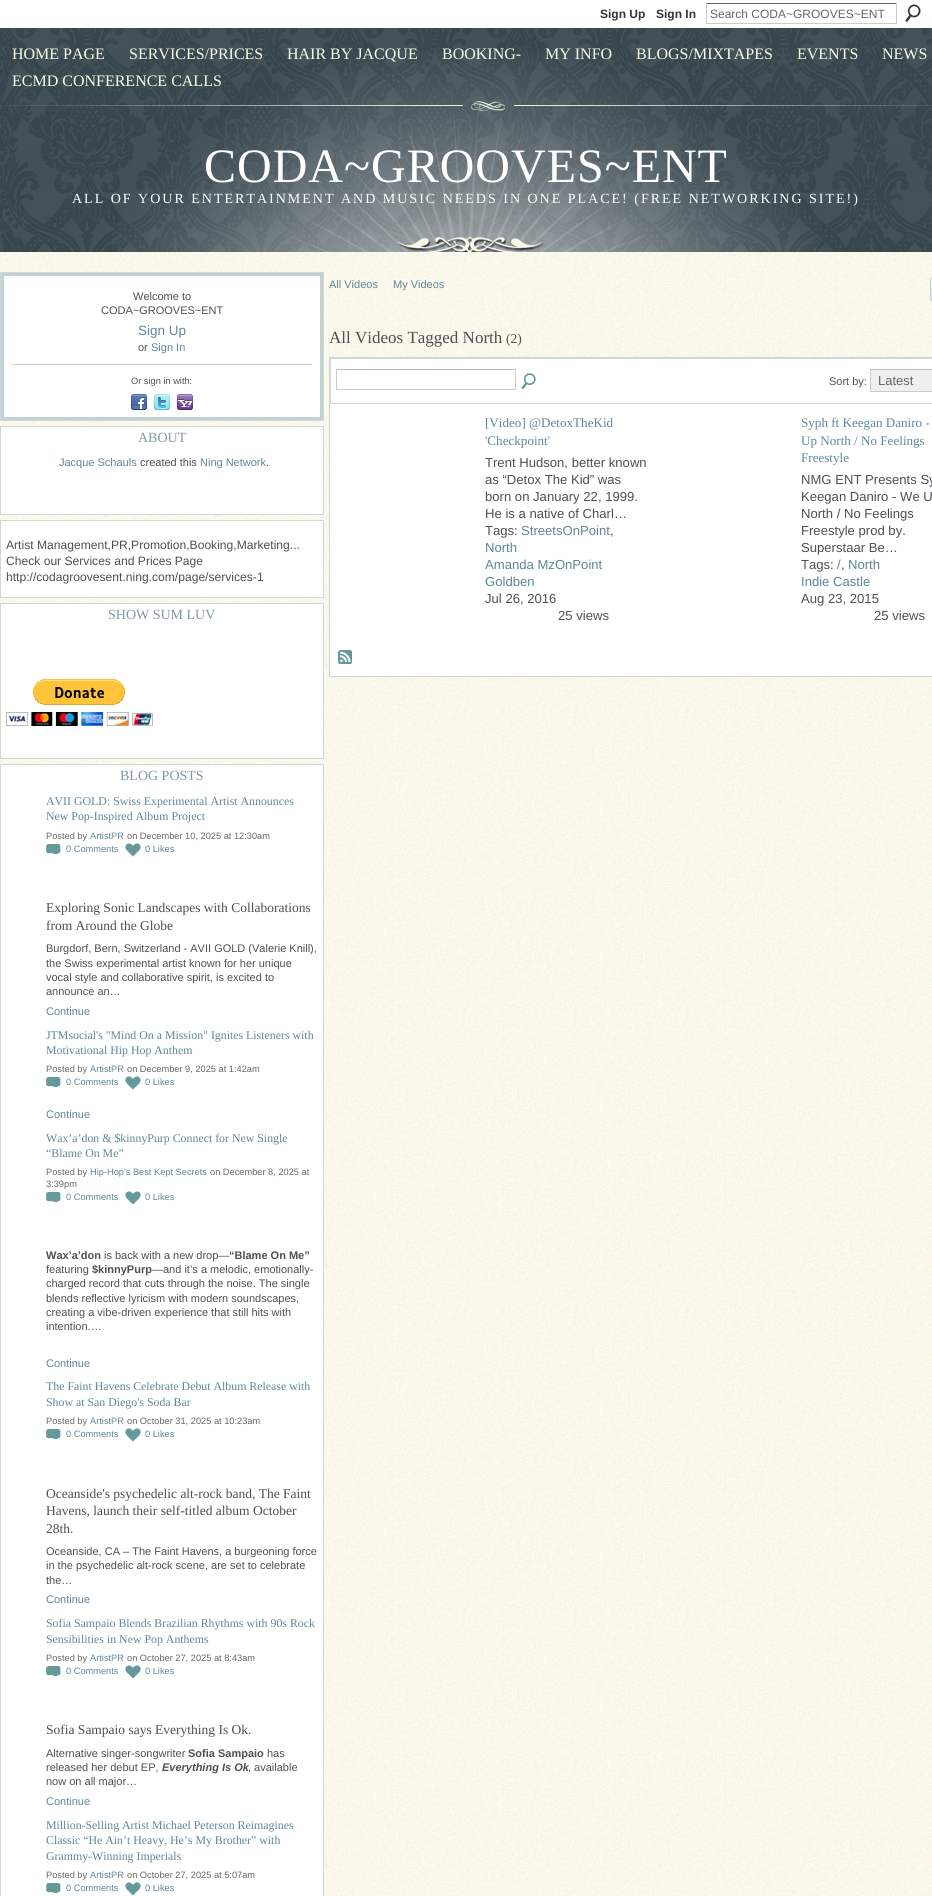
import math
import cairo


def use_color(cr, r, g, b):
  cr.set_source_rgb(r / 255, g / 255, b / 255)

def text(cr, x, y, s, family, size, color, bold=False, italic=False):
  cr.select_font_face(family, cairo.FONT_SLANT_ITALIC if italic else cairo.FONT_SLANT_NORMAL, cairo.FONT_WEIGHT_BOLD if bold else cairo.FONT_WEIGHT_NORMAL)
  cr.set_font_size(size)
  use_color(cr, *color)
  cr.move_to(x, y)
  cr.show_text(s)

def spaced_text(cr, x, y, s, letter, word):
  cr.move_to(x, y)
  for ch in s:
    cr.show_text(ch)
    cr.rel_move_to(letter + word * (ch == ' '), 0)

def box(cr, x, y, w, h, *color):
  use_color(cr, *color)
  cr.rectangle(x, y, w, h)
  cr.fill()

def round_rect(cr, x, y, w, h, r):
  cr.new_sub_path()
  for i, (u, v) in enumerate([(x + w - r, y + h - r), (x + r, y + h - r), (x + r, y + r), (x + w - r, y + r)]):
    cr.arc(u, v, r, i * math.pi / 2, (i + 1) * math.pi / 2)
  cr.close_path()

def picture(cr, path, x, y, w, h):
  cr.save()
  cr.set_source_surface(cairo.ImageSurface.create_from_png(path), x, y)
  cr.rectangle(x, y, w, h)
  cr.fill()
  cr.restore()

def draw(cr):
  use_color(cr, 66, 82, 92)
  cr.paint()
  picture(cr, "img_01.png", 0, 28, 932, 224)
  box(cr, 0, 0, 932, 28, 255, 255, 255)
  box(cr, 706, 3, 191, 1, 102, 102, 102)
  box(cr, 896, 3, 1, 21, 204, 204, 204)
  box(cr, 706, 23, 191, 1, 204, 204, 204)
  box(cr, 706, 3, 1, 21, 204, 204, 204)
  picture(cr, "img_02.png", 905, 4, 16, 18)
  picture(cr, "img_03.png", 112, 51, 708, 201)
  picture(cr, "img_04.png", 0, 101, 932, 10)
  picture(cr, "img_05.png", 398, 236, 146, 16)
  picture(cr, "img_06.png", 0, 252, 932, 1644)
  box(cr, 4, 276, 316, 141, 255, 255, 255)
  cr.rectangle(0.5, 272.5, 323, 148)
  use_color(cr, 205, 217, 211)
  cr.set_line_width(1)
  cr.stroke()
  cr.rectangle(2.5, 274.5, 319, 144)
  use_color(cr, 196, 208, 213)
  cr.set_line_width(3)
  cr.stroke()
  box(cr, 12, 364, 300, 1, 196, 208, 213)
  picture(cr, "img_07.png", 131, 394, 16, 16)
  picture(cr, "img_08.png", 154, 394, 16, 16)
  picture(cr, "img_09.png", 177, 394, 16, 16)
  use_color(cr, 255, 255, 255)
  cr.rectangle(0.5, 426.5, 323, 88)
  cr.fill_preserve()
  use_color(cr, 205, 217, 211)
  cr.set_line_width(1)
  cr.stroke()
  use_color(cr, 255, 255, 255)
  cr.rectangle(0.5, 520.5, 323, 77)
  cr.fill_preserve()
  use_color(cr, 205, 217, 211)
  cr.stroke()
  use_color(cr, 255, 255, 255)
  cr.rectangle(0.5, 603.5, 323, 155)
  cr.fill_preserve()
  use_color(cr, 205, 217, 211)
  cr.stroke()
  picture(cr, "img_10.png", 6, 679, 147, 47)
  use_color(cr, 255, 255, 255)
  cr.rectangle(0.5, 764.5, 323, 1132)
  cr.fill_preserve()
  use_color(cr, 205, 217, 211)
  cr.stroke()
  picture(cr, "img_11.png", 46, 844, 15, 10)
  picture(cr, "img_12.png", 125, 843, 16, 14)
  picture(cr, "img_11.png", 46, 1077, 15, 10)
  picture(cr, "img_12.png", 125, 1076, 16, 14)
  picture(cr, "img_11.png", 46, 1192, 15, 10)
  picture(cr, "img_12.png", 125, 1191, 16, 14)
  picture(cr, "img_11.png", 46, 1429, 15, 10)
  picture(cr, "img_12.png", 125, 1428, 16, 14)
  picture(cr, "img_11.png", 46, 1666, 15, 10)
  picture(cr, "img_12.png", 125, 1665, 16, 14)
  picture(cr, "img_11.png", 46, 1883, 15, 10)
  picture(cr, "img_12.png", 125, 1882, 16, 14)
  picture(cr, "img_13.png", 930, 280, 2, 21)
  round_rect(cr, 930.5, 277.5, 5, 23, 2.5)
  use_color(cr, 196, 208, 213)
  cr.stroke()
  box(cr, 330, 359, 602, 317, 255, 255, 255)
  cr.rectangle(329.5, 357.5, 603, 319)
  use_color(cr, 205, 217, 211)
  cr.stroke()
  cr.rectangle(330.5, 358.5, 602, 45)
  cr.stroke()
  box(cr, 336, 369, 180, 1, 187, 187, 187)
  box(cr, 515, 369, 1, 21, 204, 204, 204)
  box(cr, 336, 389, 180, 1, 204, 204, 204)
  box(cr, 336, 369, 1, 21, 204, 204, 204)
  picture(cr, "img_14.png", 521, 373, 15, 16)
  box(cr, 871, 370, 61, 21, 239, 239, 239)
  box(cr, 870, 369, 62, 1, 187, 187, 187)
  box(cr, 870, 391, 62, 1, 204, 204, 204)
  box(cr, 870, 369, 1, 23, 204, 204, 204)
  picture(cr, "img_15.png", 338, 650, 14, 14)
  text(cr, 600, 18, "Sign Up", "Liberation Sans", 12, (51, 51, 51), bold=True)
  text(cr, 656, 18, "Sign In", "Liberation Sans", 12, (51, 51, 51), bold=True)
  text(cr, 710, 18, "Search CODA~GROOVES~ENT", "Liberation Sans", 12, (102, 102, 102))
  text(cr, 12, 59, "HOME PAGE", "Liberation Serif", 16, (249, 253, 230))
  text(cr, 129, 59, "SERVICES/PRICES", "Liberation Serif", 16, (249, 253, 230))
  text(cr, 287, 59, "HAIR BY JACQUE", "Liberation Serif", 16, (249, 253, 230))
  text(cr, 442, 59, "BOOKING-", "Liberation Serif", 16, (249, 253, 230))
  text(cr, 545, 59, "MY INFO", "Liberation Serif", 16, (249, 253, 230))
  text(cr, 636, 59, "BLOGS/MIXTAPES", "Liberation Serif", 16, (249, 253, 230))
  text(cr, 797, 59, "EVENTS", "Liberation Serif", 16, (249, 253, 230))
  text(cr, 882, 59, "NEWS", "Liberation Serif", 16, (249, 253, 230))
  text(cr, 12, 86, "ECMD CONFERENCE CALLS", "Liberation Serif", 16, (249, 253, 230))
  cr.set_font_size(48)
  use_color(cr, 255, 255, 255)
  spaced_text(cr, 204, 182, "CODA~GROOVES~ENT", 1, 0)
  cr.set_font_size(14)
  spaced_text(cr, 72, 203, "ALL OF YOUR ENTERTAINMENT AND MUSIC NEEDS IN ONE PLACE! (FREE NETWORKING SITE!)", 2, 0)
  text(cr, 133, 300, "Welcome to", "Liberation Sans", 11, (78, 78, 84))
  text(cr, 101, 314, "CODA~GROOVES~ENT", "Liberation Sans", 11, (78, 78, 84))
  text(cr, 138, 335, "Sign Up", "Liberation Sans", 13.5, (94, 134, 152))
  text(cr, 138, 351, "or", "Liberation Sans", 11, (78, 78, 84))
  text(cr, 151, 351, "Sign In", "Liberation Sans", 11, (94, 134, 152))
  text(cr, 131, 384, "Or sign in with:", "Liberation Sans", 9.25, (78, 78, 84))
  text(cr, 138, 442, "ABOUT", "Liberation Serif", 14, (129, 152, 163))
  text(cr, 59, 466, "Jacque Schauls", "Liberation Sans", 11, (94, 134, 152))
  text(cr, 140, 466, "created this", "Liberation Sans", 11, (78, 78, 84))
  text(cr, 200, 466, "Ning Network", "Liberation Sans", 11, (94, 134, 152))
  text(cr, 266, 466, ".", "Liberation Sans", 11, (78, 78, 84))
  text(cr, 6, 549, "Artist Management,PR,Promotion,Booking,Marketing...", "Liberation Sans", 12.1, (78, 78, 84))
  text(cr, 6, 565, "Check our Services and Prices Page", "Liberation Sans", 12.1, (78, 78, 84))
  text(cr, 6, 581, "http://codagroovesent.ning.com/page/services-1", "Liberation Sans", 12.1, (78, 78, 84))
  text(cr, 108, 619, "SHOW SUM LUV", "Liberation Serif", 14, (129, 152, 163))
  text(cr, 120, 780, "BLOG POSTS", "Liberation Serif", 14, (129, 152, 163))
  text(cr, 46, 805, "AVII GOLD: Swiss Experimental Artist Announces", "Liberation Serif", 11.85, (94, 134, 152))
  text(cr, 46, 820, "New Pop-Inspired Album Project", "Liberation Serif", 11.85, (94, 134, 152))
  text(cr, 46, 839, "Posted by", "Liberation Sans", 9.25, (102, 102, 102))
  text(cr, 90, 839, "ArtistPR", "Liberation Sans", 9.25, (94, 134, 152))
  text(cr, 127, 839, "on December 10, 2025 at 12:30am", "Liberation Sans", 9.25, (102, 102, 102))
  text(cr, 66, 852, "0 Comments", "Liberation Sans", 9.25, (94, 134, 152))
  text(cr, 145, 852, "0 Likes", "Liberation Sans", 9.25, (94, 134, 152))
  text(cr, 46, 912, "Exploring Sonic Landscapes with Collaborations", "Liberation Serif", 13.5, (78, 78, 84))
  text(cr, 46, 930, "from Around the Globe", "Liberation Serif", 13.5, (78, 78, 84))
  text(cr, 46, 952, "Burgdorf, Bern, Switzerland - AVII GOLD (Valerie Knill),", "Liberation Sans", 11, (78, 78, 84))
  text(cr, 46, 967, "the Swiss experimental artist known for her unique", "Liberation Sans", 11, (78, 78, 84))
  text(cr, 46, 981, "vocal style and collaborative spirit, is excited to", "Liberation Sans", 11, (78, 78, 84))
  text(cr, 46, 995, "announce an…", "Liberation Sans", 11, (78, 78, 84))
  text(cr, 46, 1015, "Continue", "Liberation Sans", 11, (94, 134, 152))
  text(cr, 46, 1039, "JTMsocial's \"Mind On a Mission\" Ignites Listeners with", "Liberation Serif", 11.85, (94, 134, 152))
  text(cr, 46, 1054, "Motivational Hip Hop Anthem", "Liberation Serif", 11.85, (94, 134, 152))
  text(cr, 46, 1072, "Posted by", "Liberation Sans", 9.25, (102, 102, 102))
  text(cr, 90, 1072, "ArtistPR", "Liberation Sans", 9.25, (94, 134, 152))
  text(cr, 127, 1072, "on December 9, 2025 at 1:42am", "Liberation Sans", 9.25, (102, 102, 102))
  text(cr, 66, 1085, "0 Comments", "Liberation Sans", 9.25, (94, 134, 152))
  text(cr, 145, 1085, "0 Likes", "Liberation Sans", 9.25, (94, 134, 152))
  text(cr, 46, 1118, "Continue", "Liberation Sans", 11, (94, 134, 152))
  text(cr, 46, 1142, "Wax’a’don & $kinnyPurp Connect for New Single", "Liberation Serif", 11.85, (94, 134, 152))
  text(cr, 46, 1157, "“Blame On Me”", "Liberation Serif", 11.85, (94, 134, 152))
  text(cr, 46, 1175, "Posted by", "Liberation Sans", 9.25, (102, 102, 102))
  text(cr, 90, 1175, "Hip-Hop's Best Kept Secrets", "Liberation Sans", 9.25, (94, 134, 152))
  text(cr, 210, 1175, "on December 8, 2025 at", "Liberation Sans", 9.25, (102, 102, 102))
  text(cr, 46, 1187, "3:39pm", "Liberation Sans", 9.25, (102, 102, 102))
  text(cr, 66, 1200, "0 Comments", "Liberation Sans", 9.25, (94, 134, 152))
  text(cr, 145, 1200, "0 Likes", "Liberation Sans", 9.25, (94, 134, 152))
  text(cr, 46, 1259, "Wax’a’don", "Liberation Sans", 11, (78, 78, 84), bold=True)
  text(cr, 104, 1259, "is back with a new drop—", "Liberation Sans", 11, (78, 78, 84))
  text(cr, 229, 1259, "“Blame On Me”", "Liberation Sans", 11, (78, 78, 84), bold=True)
  text(cr, 46, 1273, "featuring", "Liberation Sans", 11, (78, 78, 84))
  text(cr, 92, 1273, "$kinnyPurp", "Liberation Sans", 11, (78, 78, 84), bold=True)
  text(cr, 152, 1273, "—and it’s a melodic, emotionally-", "Liberation Sans", 11, (78, 78, 84))
  text(cr, 46, 1287, "charged record that cuts through the noise. The single", "Liberation Sans", 11, (78, 78, 84))
  text(cr, 46, 1302, "blends reflective lyricism with modern soundscapes,", "Liberation Sans", 11, (78, 78, 84))
  text(cr, 46, 1316, "creating a vibe-driven experience that still hits with", "Liberation Sans", 11, (78, 78, 84))
  text(cr, 46, 1330, "intention.…", "Liberation Sans", 11, (78, 78, 84))
  text(cr, 46, 1367, "Continue", "Liberation Sans", 11, (94, 134, 152))
  text(cr, 46, 1390, "The Faint Havens Celebrate Debut Album Release with", "Liberation Serif", 11.85, (94, 134, 152))
  text(cr, 46, 1406, "Show at San Diego's Soda Bar", "Liberation Serif", 11.85, (94, 134, 152))
  text(cr, 46, 1424, "Posted by", "Liberation Sans", 9.25, (102, 102, 102))
  text(cr, 90, 1424, "ArtistPR", "Liberation Sans", 9.25, (94, 134, 152))
  text(cr, 127, 1424, "on October 31, 2025 at 10:23am", "Liberation Sans", 9.25, (102, 102, 102))
  text(cr, 66, 1437, "0 Comments", "Liberation Sans", 9.25, (94, 134, 152))
  text(cr, 145, 1437, "0 Likes", "Liberation Sans", 9.25, (94, 134, 152))
  text(cr, 46, 1498, "Oceanside's psychedelic alt-rock band, The Faint", "Liberation Serif", 13.5, (78, 78, 84))
  text(cr, 46, 1515, "Havens, launch their self-titled album October", "Liberation Serif", 13.5, (78, 78, 84))
  text(cr, 46, 1533, "28th.", "Liberation Serif", 13.5, (78, 78, 84))
  text(cr, 46, 1555, "Oceanside, CA – The Faint Havens, a burgeoning force", "Liberation Sans", 11, (78, 78, 84))
  text(cr, 46, 1569, "in the psychedelic alt-rock scene, are set to celebrate", "Liberation Sans", 11, (78, 78, 84))
  text(cr, 46, 1584, "the…", "Liberation Sans", 11, (78, 78, 84))
  text(cr, 46, 1603, "Continue", "Liberation Sans", 11, (94, 134, 152))
  text(cr, 46, 1627, "Sofia Sampaio Blends Brazilian Rhythms with 90s Rock", "Liberation Serif", 11.85, (94, 134, 152))
  text(cr, 46, 1643, "Sensibilities in New Pop Anthems", "Liberation Serif", 11.85, (94, 134, 152))
  text(cr, 46, 1661, "Posted by", "Liberation Sans", 9.25, (102, 102, 102))
  text(cr, 90, 1661, "ArtistPR", "Liberation Sans", 9.25, (94, 134, 152))
  text(cr, 127, 1661, "on October 27, 2025 at 8:43am", "Liberation Sans", 9.25, (102, 102, 102))
  text(cr, 66, 1674, "0 Comments", "Liberation Sans", 9.25, (94, 134, 152))
  text(cr, 145, 1674, "0 Likes", "Liberation Sans", 9.25, (94, 134, 152))
  text(cr, 46, 1734, "Sofia Sampaio says Everything Is Ok.", "Liberation Serif", 13.5, (78, 78, 84))
  text(cr, 46, 1757, "Alternative singer-songwriter", "Liberation Sans", 11, (78, 78, 84))
  text(cr, 188, 1757, "Sofia Sampaio", "Liberation Sans", 11, (78, 78, 84), bold=True)
  text(cr, 267, 1757, "has", "Liberation Sans", 11, (78, 78, 84))
  text(cr, 46, 1771, "released her debut EP,", "Liberation Sans", 11, (78, 78, 84))
  text(cr, 162, 1771, "Everything Is Ok", "Liberation Sans", 11, (78, 78, 84), bold=True, italic=True)
  text(cr, 248, 1771, ", available", "Liberation Sans", 11, (78, 78, 84))
  text(cr, 46, 1785, "now on all major…", "Liberation Sans", 11, (78, 78, 84))
  text(cr, 46, 1805, "Continue", "Liberation Sans", 11, (94, 134, 152))
  text(cr, 46, 1829, "Million-Selling Artist Michael Peterson Reimagines", "Liberation Serif", 11.85, (94, 134, 152))
  text(cr, 46, 1844, "Classic “He Ain’t Heavy, He’s My Brother” with", "Liberation Serif", 11.85, (94, 134, 152))
  text(cr, 46, 1860, "Grammy-Winning Imperials", "Liberation Serif", 11.85, (94, 134, 152))
  text(cr, 46, 1878, "Posted by", "Liberation Sans", 9.25, (102, 102, 102))
  text(cr, 90, 1878, "ArtistPR", "Liberation Sans", 9.25, (94, 134, 152))
  text(cr, 127, 1878, "on October 27, 2025 at 5:07am", "Liberation Sans", 9.25, (102, 102, 102))
  text(cr, 66, 1891, "0 Comments", "Liberation Sans", 9.25, (94, 134, 152))
  text(cr, 145, 1891, "0 Likes", "Liberation Sans", 9.25, (94, 134, 152))
  text(cr, 329, 288, "All Videos", "Liberation Sans", 11, (94, 134, 152))
  text(cr, 393, 288, "My Videos", "Liberation Sans", 11, (94, 134, 152))
  text(cr, 329, 343, "All Videos Tagged North", "Liberation Serif", 17, (78, 78, 84))
  text(cr, 506, 343, "(2)", "Liberation Serif", 13.5, (78, 78, 84))
  text(cr, 829, 385, "Sort by:", "Liberation Sans", 11, (78, 78, 84))
  text(cr, 878, 385, "Latest", "Liberation Sans", 13, (102, 102, 102))
  text(cr, 485, 427, "[Video] @DetoxTheKid", "Liberation Serif", 13.1, (94, 134, 152))
  text(cr, 485, 445, "'Checkpoint'", "Liberation Serif", 13.1, (94, 134, 152))
  text(cr, 485, 467, "Trent Hudson, better known", "Liberation Sans", 13.1, (78, 78, 84))
  text(cr, 485, 484, "as “Detox The Kid” was", "Liberation Sans", 13.1, (78, 78, 84))
  text(cr, 485, 501, "born on January 22, 1999.", "Liberation Sans", 13.1, (78, 78, 84))
  text(cr, 485, 518, "He is a native of Charl…", "Liberation Sans", 13.1, (78, 78, 84))
  text(cr, 485, 535, "Tags:", "Liberation Sans", 13.1, (78, 78, 84))
  text(cr, 521, 535, "StreetsOnPoint", "Liberation Sans", 13.1, (94, 134, 152))
  text(cr, 610, 535, ",", "Liberation Sans", 13.1, (78, 78, 84))
  text(cr, 485, 552, "North", "Liberation Sans", 13.1, (94, 134, 152))
  text(cr, 485, 569, "Amanda MzOnPoint", "Liberation Sans", 13.1, (94, 134, 152))
  text(cr, 485, 586, "Goldben", "Liberation Sans", 13.1, (94, 134, 152))
  text(cr, 485, 603, "Jul 26, 2016", "Liberation Sans", 13.1, (78, 78, 84))
  text(cr, 558, 620, "25 views", "Liberation Sans", 13.1, (78, 78, 84))
  text(cr, 801, 427, "Syph ft Keegan Daniro -", "Liberation Serif", 13.1, (94, 134, 152))
  text(cr, 801, 445, "Up North / No Feelings", "Liberation Serif", 13.1, (94, 134, 152))
  text(cr, 801, 462, "Freestyle", "Liberation Serif", 13.1, (94, 134, 152))
  text(cr, 801, 484, "NMG ENT Presents Sy", "Liberation Sans", 13.1, (78, 78, 84))
  text(cr, 801, 501, "Keegan Daniro - We U", "Liberation Sans", 13.1, (78, 78, 84))
  text(cr, 801, 518, "North / No Feelings", "Liberation Sans", 13.1, (78, 78, 84))
  text(cr, 801, 535, "Freestyle prod by.", "Liberation Sans", 13.1, (78, 78, 84))
  text(cr, 801, 552, "Superstaar Be…", "Liberation Sans", 13.1, (78, 78, 84))
  text(cr, 801, 569, "Tags:", "Liberation Sans", 13.1, (78, 78, 84))
  text(cr, 837, 569, "/", "Liberation Sans", 13.1, (94, 134, 152))
  text(cr, 841, 569, ",", "Liberation Sans", 13.1, (78, 78, 84))
  text(cr, 848, 569, "North", "Liberation Sans", 13.1, (94, 134, 152))
  text(cr, 801, 586, "Indie Castle", "Liberation Sans", 13.1, (94, 134, 152))
  text(cr, 801, 603, "Aug 23, 2015", "Liberation Sans", 13.1, (78, 78, 84))
  text(cr, 874, 620, "25 views", "Liberation Sans", 13.1, (78, 78, 84))


surface = cairo.ImageSurface(cairo.FORMAT_RGB24, 932, 1896)
cr = cairo.Context(surface)
options = cairo.FontOptions()
options.set_hint_metrics(cairo.HINT_METRICS_OFF)
options.set_hint_style(cairo.HINT_STYLE_NONE)
cr.set_font_options(options)
cr.set_miter_limit(4)
draw(cr)
surface.write_to_png("out.png")
